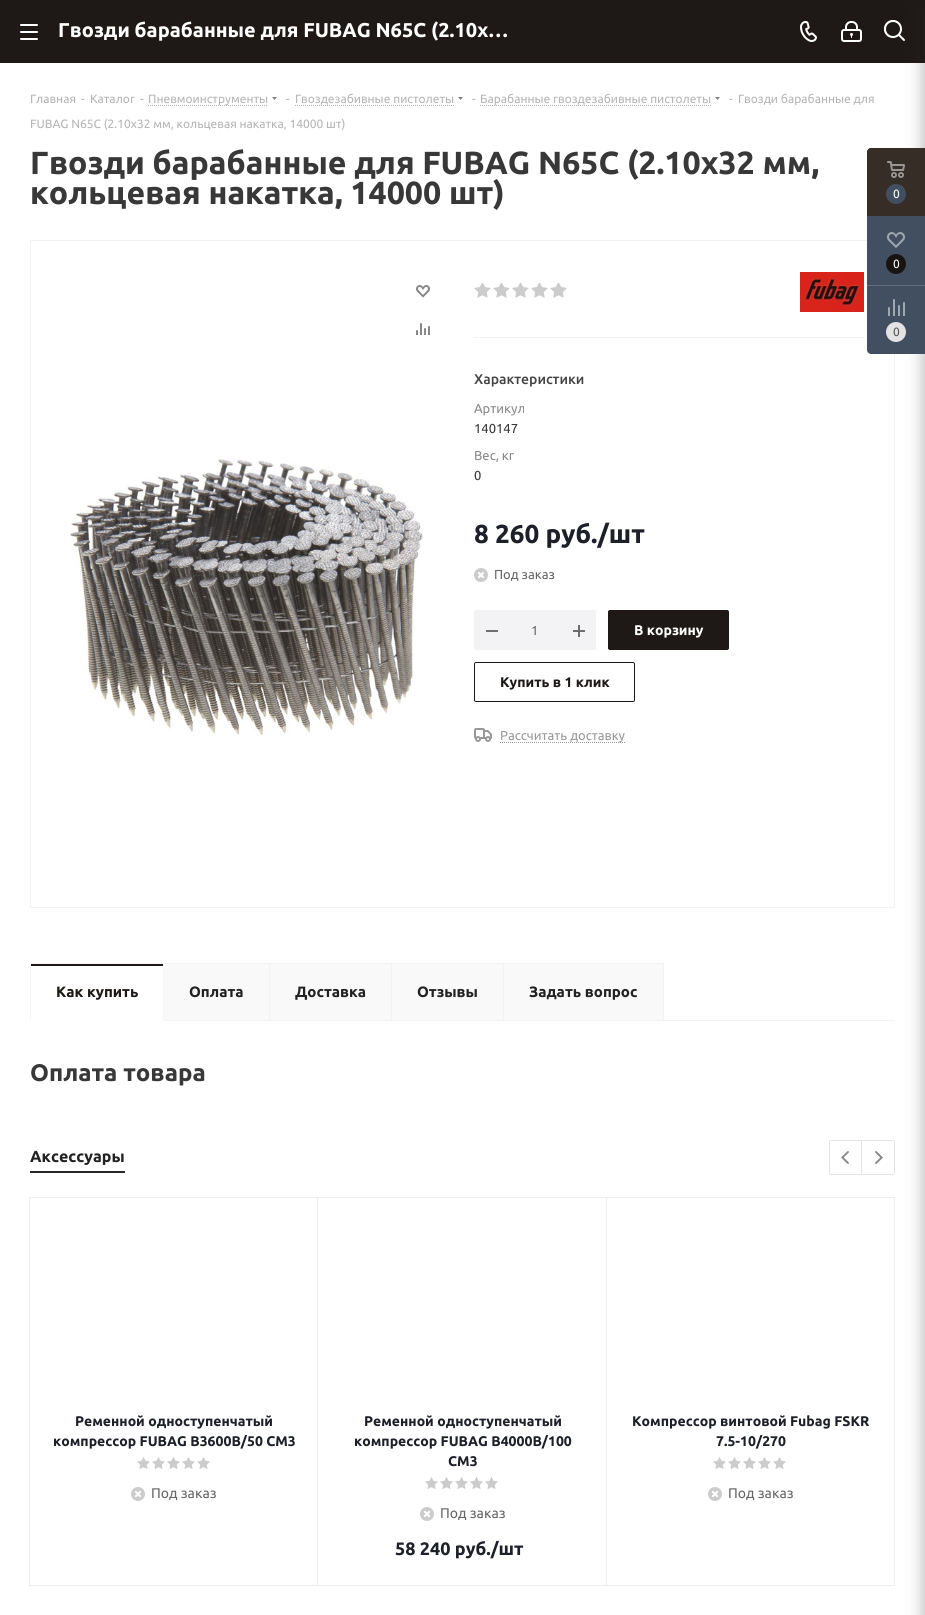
import math
import cairo


def use_color(cr, r, g, b):
  cr.set_source_rgb(r / 255, g / 255, b / 255)

def text(cr, x, y, s, family, size, color, bold=False, italic=False):
  cr.select_font_face(family, cairo.FONT_SLANT_ITALIC if italic else cairo.FONT_SLANT_NORMAL, cairo.FONT_WEIGHT_BOLD if bold else cairo.FONT_WEIGHT_NORMAL)
  cr.set_font_size(size)
  use_color(cr, *color)
  cr.move_to(x, y)
  cr.show_text(s)

def box(cr, x, y, w, h, *color):
  use_color(cr, *color)
  cr.rectangle(x, y, w, h)
  cr.fill()

def round_rect(cr, x, y, w, h, r):
  cr.new_sub_path()
  for i, (u, v) in enumerate([(x + w - r, y + h - r), (x + r, y + h - r), (x + r, y + r), (x + w - r, y + r)]):
    cr.arc(u, v, r, i * math.pi / 2, (i + 1) * math.pi / 2)
  cr.close_path()

def shadow(cr, x, y, w, h, r, blur, alpha):
  cr.push_group_with_content(cairo.CONTENT_ALPHA)
  cr.set_operator(cairo.OPERATOR_SOURCE)
  for i in range(15, -16, -2):
    e = blur * i / 6
    if min(w, h) + 2 * e > 0:
      cr.set_source_rgba(0, 0, 0, alpha * math.erfc((i - 1) / 8.5) / 2)
      round_rect(cr, x - e, y - e, w + 2 * e, h + 2 * e, max(0, min(r + e + blur * .6, min(w, h) / 2 + e)))
      cr.fill()
  cr.mask(cr.pop_group())

def picture(cr, path, x, y, w, h):
  cr.save()
  cr.set_source_surface(cairo.ImageSurface.create_from_png(path), x, y)
  cr.rectangle(x, y, w, h)
  cr.fill()
  cr.restore()

def draw(cr):
  use_color(cr, 255, 255, 255)
  cr.paint()
  box(cr, 0, 0, 925, 63, 30, 25, 22)
  picture(cr, "img_01.png", 20, 24, 18, 16)
  picture(cr, "img_02.png", 800, 21, 17, 21)
  picture(cr, "img_03.png", 841, 21, 21, 21)
  picture(cr, "img_04.png", 884, 20, 21, 21)
  cr.new_path()
  cr.move_to(148, 105.5)
  cr.line_to(268, 105.5)
  use_color(cr, 180, 180, 180)
  cr.set_line_width(1)
  cr.set_dash([1, 1])
  cr.stroke()
  picture(cr, "img_05.png", 272, 97, 5, 3)
  cr.new_path()
  cr.move_to(295, 105.5)
  cr.line_to(454, 105.5)
  cr.stroke()
  picture(cr, "img_05.png", 458, 97, 5, 3)
  cr.new_path()
  cr.move_to(480, 105.5)
  cr.line_to(711, 105.5)
  cr.stroke()
  picture(cr, "img_05.png", 715, 97, 5, 3)
  cr.rectangle(30.5, 240.5, 864, 667)
  use_color(cr, 242, 242, 242)
  cr.set_dash([])
  cr.stroke()
  picture(cr, "img_06.png", 416, 285, 14, 13)
  picture(cr, "img_07.png", 416, 323, 14, 12)
  picture(cr, "img_08.png", 70, 458, 353, 279)
  box(cr, 474, 337, 390, 1, 242, 242, 242)
  picture(cr, "img_09.png", 474, 283, 17, 15)
  picture(cr, "img_09.png", 493, 283, 17, 15)
  picture(cr, "img_09.png", 512, 283, 17, 15)
  picture(cr, "img_09.png", 531, 283, 17, 15)
  picture(cr, "img_09.png", 550, 283, 17, 15)
  picture(cr, "img_10.png", 800, 272, 64, 40)
  picture(cr, "img_11.png", 474, 568, 14, 14)
  use_color(cr, 243, 243, 245)
  round_rect(cr, 474, 610, 122, 40, 2)
  cr.fill()
  box(cr, 486, 630, 12, 2, 109, 109, 109)
  picture(cr, "img_12.png", 573, 625, 12, 12)
  use_color(cr, 30, 25, 22)
  round_rect(cr, 608.5, 610.5, 120, 39, 1.5)
  cr.fill_preserve()
  cr.stroke()
  round_rect(cr, 474.5, 662.5, 160, 39, 1.5)
  cr.stroke()
  picture(cr, "img_13.png", 474, 728, 18, 14)
  cr.new_path()
  cr.move_to(500, 742.5)
  cr.line_to(625, 742.5)
  use_color(cr, 153, 153, 153)
  cr.set_dash([1, 1])
  cr.stroke()
  box(cr, 664, 1020, 231, 1, 242, 242, 242)
  use_color(cr, 249, 249, 250)
  cr.rectangle(163.5, 963.5, 106, 57)
  cr.fill_preserve()
  use_color(cr, 242, 242, 242)
  cr.set_dash([])
  cr.stroke()
  box(cr, 30, 963, 134, 1, 245, 245, 245)
  box(cr, 163, 963, 1, 58, 245, 245, 245)
  box(cr, 163, 1020, 1, 1, 255, 255, 255)
  box(cr, 30, 963, 1, 58, 245, 245, 245)
  box(cr, 31, 964, 132, 2, 30, 25, 22)
  use_color(cr, 249, 249, 250)
  cr.rectangle(269.5, 963.5, 122, 57)
  cr.fill_preserve()
  use_color(cr, 242, 242, 242)
  cr.stroke()
  use_color(cr, 249, 249, 250)
  cr.rectangle(391.5, 963.5, 112, 57)
  cr.fill_preserve()
  use_color(cr, 242, 242, 242)
  cr.stroke()
  use_color(cr, 249, 249, 250)
  cr.rectangle(503.5, 963.5, 160, 57)
  cr.fill_preserve()
  use_color(cr, 242, 242, 242)
  cr.stroke()
  box(cr, 30, 1171, 95, 2, 41, 41, 41)
  cr.new_path()
  cr.move_to(831, 1140.5)
  cr.line_to(861.5, 1140.5)
  cr.line_to(861.5, 1174.5)
  cr.line_to(831, 1174.5)
  cr.curve_to(830, 1174.5, 829.5, 1174, 829.5, 1173)
  cr.line_to(829.5, 1142)
  cr.curve_to(829.5, 1141, 830, 1140.5, 831, 1140.5)
  cr.close_path()
  use_color(cr, 229, 229, 229)
  cr.stroke()
  picture(cr, "img_14.png", 841, 1151, 8, 13)
  box(cr, 862, 1140, 32, 1, 229, 229, 229)
  box(cr, 894, 1141, 1, 33, 229, 229, 229)
  box(cr, 862, 1174, 32, 1, 229, 229, 229)
  picture(cr, "img_15.png", 875, 1151, 8, 13)
  cr.rectangle(29.5, 1197.5, 288, 388)
  use_color(cr, 238, 238, 238)
  cr.stroke()
  picture(cr, "img_16.png", 137, 1457, 13, 12)
  picture(cr, "img_16.png", 152, 1457, 13, 12)
  picture(cr, "img_16.png", 167, 1457, 13, 12)
  picture(cr, "img_16.png", 182, 1457, 13, 12)
  picture(cr, "img_16.png", 197, 1457, 13, 12)
  picture(cr, "img_11.png", 131, 1487, 14, 14)
  cr.rectangle(317.5, 1197.5, 289, 388)
  cr.stroke()
  picture(cr, "img_16.png", 425, 1477, 13, 12)
  picture(cr, "img_16.png", 440, 1477, 13, 12)
  picture(cr, "img_16.png", 455, 1477, 13, 12)
  picture(cr, "img_16.png", 470, 1477, 13, 12)
  picture(cr, "img_16.png", 485, 1477, 13, 12)
  picture(cr, "img_11.png", 420, 1507, 14, 14)
  cr.rectangle(606.5, 1197.5, 288, 388)
  cr.stroke()
  picture(cr, "img_16.png", 713, 1457, 13, 12)
  picture(cr, "img_16.png", 728, 1457, 13, 12)
  picture(cr, "img_16.png", 743, 1457, 13, 12)
  picture(cr, "img_16.png", 758, 1457, 13, 12)
  picture(cr, "img_16.png", 773, 1457, 13, 12)
  picture(cr, "img_11.png", 708, 1487, 14, 14)
  cr.save()
  cr.rectangle(20, 1179, 885, 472)
  cr.clip()
  cr.rectangle(894.5, 1197.5, 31, 388)
  cr.stroke()
  cr.restore()
  box(cr, 895, 1197, 10, 389, 255, 255, 255)
  use_color(cr, 44, 44, 44)
  shadow(cr, 925, 6, 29, 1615, 2, 9, 0.4)
  use_color(cr, 66, 79, 96)
  cr.new_path()
  cr.move_to(871, 148)
  cr.line_to(925, 148)
  cr.line_to(925, 354)
  cr.line_to(871, 354)
  cr.curve_to(869, 354, 867, 352, 867, 350)
  cr.line_to(867, 152)
  cr.curve_to(867, 150, 869, 148, 871, 148)
  cr.close_path()
  cr.fill()
  use_color(cr, 54, 45, 39)
  cr.new_path()
  cr.move_to(871, 148)
  cr.line_to(925, 148)
  cr.line_to(925, 216)
  cr.line_to(867, 216)
  cr.line_to(867, 152)
  cr.curve_to(867, 150, 869, 148, 871, 148)
  cr.close_path()
  cr.fill()
  picture(cr, "img_17.png", 887, 161, 18, 17)
  use_color(cr, 66, 79, 96)
  cr.arc(896, 194, 10, 0, 2 * math.pi)
  cr.fill()
  picture(cr, "img_18.png", 887, 232, 18, 16)
  use_color(cr, 24, 20, 17)
  cr.arc(896, 264, 10, 0, 2 * math.pi)
  cr.fill()
  box(cr, 867, 285, 58, 1, 99, 111, 125)
  picture(cr, "img_19.png", 888, 299, 17, 17)
  use_color(cr, 227, 227, 227)
  cr.arc(896, 332, 10, 0, 2 * math.pi)
  cr.fill()
  text(cr, 58, 37, "Гвозди барабанные для FUBAG N65C (2.10x…", "Ubuntu", 20, (255, 255, 255), bold=True)
  text(cr, 30, 103, "Главная", "Ubuntu", 12, (182, 181, 181))
  text(cr, 81, 103, "-", "Ubuntu", 12, (182, 181, 181))
  text(cr, 90, 103, "Каталог", "Ubuntu", 12, (182, 181, 181))
  text(cr, 140, 103, "-", "Ubuntu", 12, (182, 181, 181))
  text(cr, 148, 103, "Пневмоинструменты", "Ubuntu", 12, (182, 181, 181))
  text(cr, 286, 103, "-", "Ubuntu", 12, (182, 181, 181))
  text(cr, 295, 103, "Гвоздезабивные пистолеты", "Ubuntu", 12, (182, 181, 181))
  text(cr, 472, 103, "-", "Ubuntu", 12, (182, 181, 181))
  text(cr, 480, 103, "Барабанные гвоздезабивные пистолеты", "Ubuntu", 12, (182, 181, 181))
  text(cr, 729, 103, "-", "Ubuntu", 12, (182, 181, 181))
  text(cr, 738, 103, "Гвозди барабанные для", "Ubuntu", 12, (182, 181, 181))
  text(cr, 30, 128, "FUBAG N65C (2.10x32 мм, кольцевая накатка, 14000 шт)", "Ubuntu", 12, (182, 181, 181))
  text(cr, 30, 174, "Гвозди барабанные для FUBAG N65C (2.10x32 мм,", "Ubuntu", 32, (56, 56, 56), bold=True)
  text(cr, 30, 204, "кольцевая накатка, 14000 шт)", "Ubuntu", 32, (56, 56, 56), bold=True)
  text(cr, 474, 384, "Характеристики", "Ubuntu Medium", 14, (68, 68, 68))
  text(cr, 474, 413, "Артикул", "Ubuntu", 13, (136, 136, 136))
  text(cr, 474, 433, "140147", "Ubuntu", 13, (56, 56, 56))
  text(cr, 474, 460, "Вес, кг", "Ubuntu", 13, (136, 136, 136))
  text(cr, 474, 480, "0", "Ubuntu", 13, (56, 56, 56))
  text(cr, 474, 543, "8 260 руб./шт", "Ubuntu", 26, (29, 32, 41), bold=True)
  text(cr, 494, 579, "Под заказ", "Ubuntu", 13, (102, 102, 102))
  text(cr, 531, 635, "1", "Ubuntu", 13, (102, 102, 102))
  text(cr, 634, 635, "В корзину", "Ubuntu", 14, (255, 255, 255), bold=True)
  text(cr, 500, 687, "Купить в 1 клик", "Ubuntu", 14, (30, 25, 22), bold=True)
  text(cr, 500, 740, "Рассчитать доставку", "Ubuntu", 13, (153, 153, 153))
  text(cr, 56, 997, "Как купить", "Ubuntu", 15, (30, 25, 22), bold=True)
  text(cr, 189, 997, "Оплата", "Ubuntu", 15, (34, 34, 34), bold=True)
  text(cr, 295, 997, "Доставка", "Ubuntu", 15, (34, 34, 34), bold=True)
  text(cr, 417, 997, "Отзывы", "Ubuntu", 15, (34, 34, 34), bold=True)
  text(cr, 529, 997, "Задать вопрос", "Ubuntu", 15, (34, 34, 34), bold=True)
  text(cr, 30, 1081, "Оплата товара", "Ubuntu", 24, (56, 56, 56), bold=True)
  text(cr, 30, 1162, "Аксессуары", "Ubuntu", 16, (34, 34, 34), bold=True)
  text(cr, 75, 1426, "Ременной одноступенчатый", "Ubuntu", 14, (29, 32, 41), bold=True)
  text(cr, 53, 1446, "компрессор FUBAG B3600B/50 CM3", "Ubuntu", 14, (29, 32, 41), bold=True)
  text(cr, 151, 1498, "Под заказ", "Ubuntu", 14, (102, 102, 102))
  text(cr, 364, 1426, "Ременной одноступенчатый", "Ubuntu", 14, (29, 32, 41), bold=True)
  text(cr, 354, 1446, "компрессор FUBAG B4000B/100", "Ubuntu", 14, (29, 32, 41), bold=True)
  text(cr, 448, 1466, "CM3", "Ubuntu", 14, (29, 32, 41), bold=True)
  text(cr, 440, 1518, "Под заказ", "Ubuntu", 14, (102, 102, 102))
  text(cr, 395, 1555, "58 240 руб./шт", "Ubuntu", 18, (29, 32, 41), bold=True)
  text(cr, 632, 1426, "Компрессор винтовой Fubag FSKR", "Ubuntu", 14, (29, 32, 41), bold=True)
  text(cr, 716, 1446, "7.5-10/270", "Ubuntu", 14, (29, 32, 41), bold=True)
  text(cr, 728, 1498, "Под заказ", "Ubuntu", 14, (102, 102, 102))
  text(cr, 893, 198, "0", "Ubuntu", 12, (255, 255, 255))
  text(cr, 893, 268, "0", "Ubuntu", 12, (255, 255, 255))
  text(cr, 893, 336, "0", "Ubuntu", 12, (85, 85, 85))


surface = cairo.ImageSurface(cairo.FORMAT_RGB24, 925, 1615)
cr = cairo.Context(surface)
options = cairo.FontOptions()
options.set_hint_metrics(cairo.HINT_METRICS_OFF)
options.set_hint_style(cairo.HINT_STYLE_NONE)
cr.set_font_options(options)
cr.set_miter_limit(4)
draw(cr)
surface.write_to_png("out.png")
